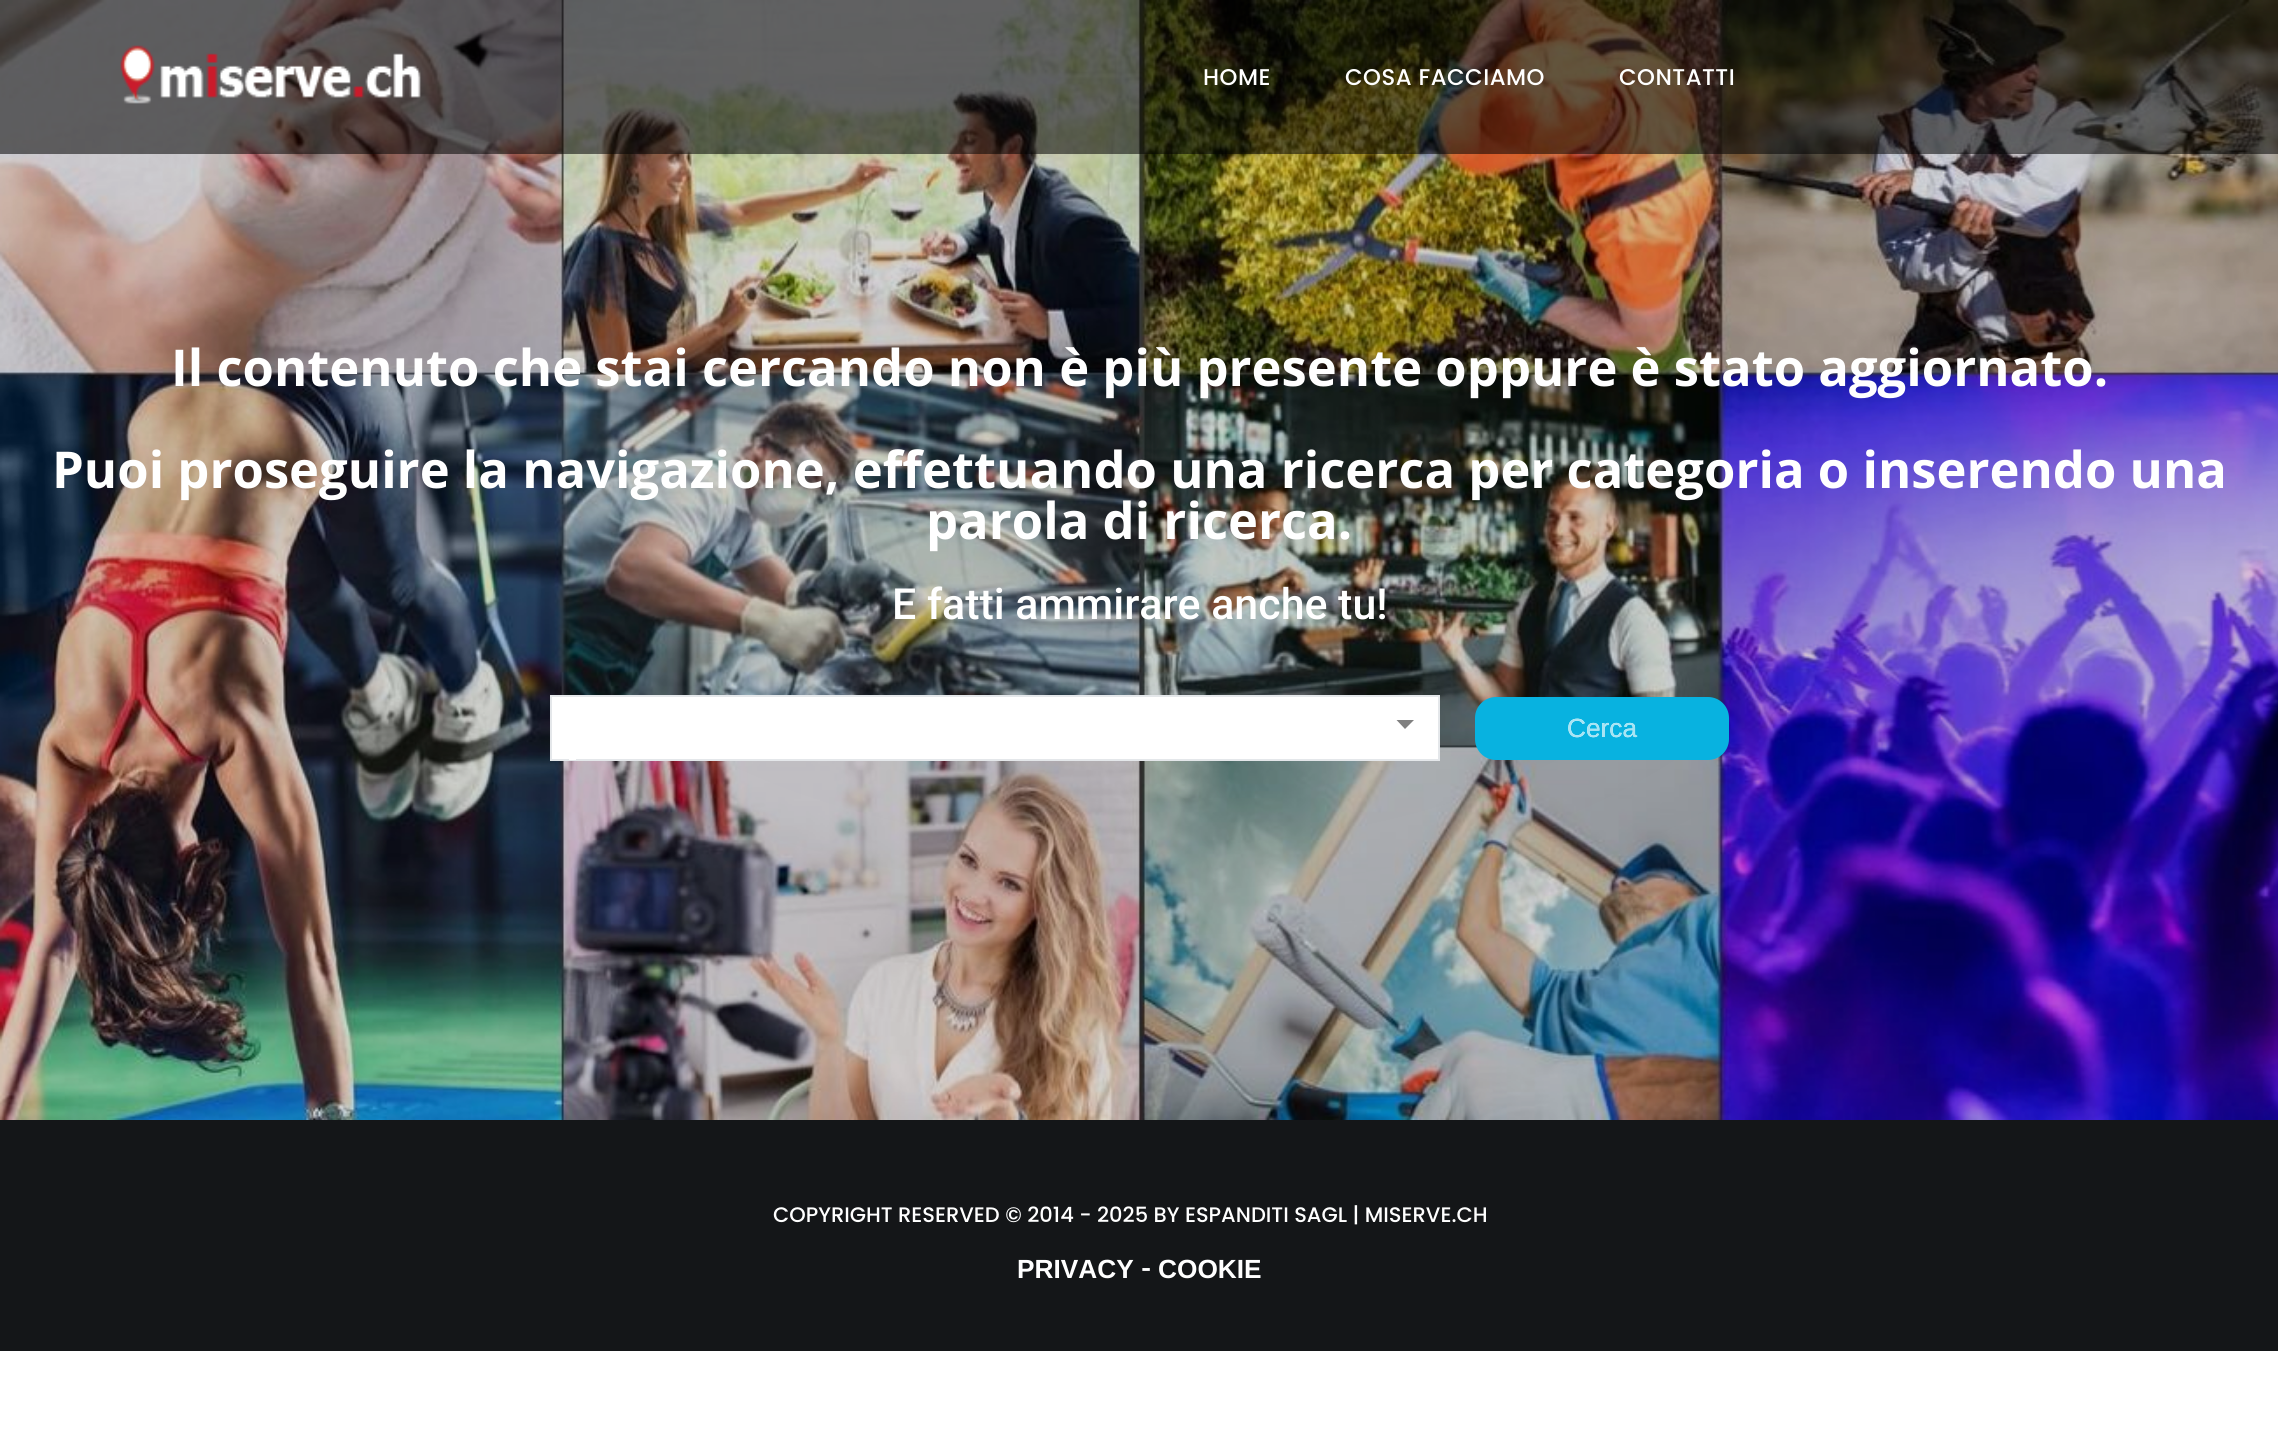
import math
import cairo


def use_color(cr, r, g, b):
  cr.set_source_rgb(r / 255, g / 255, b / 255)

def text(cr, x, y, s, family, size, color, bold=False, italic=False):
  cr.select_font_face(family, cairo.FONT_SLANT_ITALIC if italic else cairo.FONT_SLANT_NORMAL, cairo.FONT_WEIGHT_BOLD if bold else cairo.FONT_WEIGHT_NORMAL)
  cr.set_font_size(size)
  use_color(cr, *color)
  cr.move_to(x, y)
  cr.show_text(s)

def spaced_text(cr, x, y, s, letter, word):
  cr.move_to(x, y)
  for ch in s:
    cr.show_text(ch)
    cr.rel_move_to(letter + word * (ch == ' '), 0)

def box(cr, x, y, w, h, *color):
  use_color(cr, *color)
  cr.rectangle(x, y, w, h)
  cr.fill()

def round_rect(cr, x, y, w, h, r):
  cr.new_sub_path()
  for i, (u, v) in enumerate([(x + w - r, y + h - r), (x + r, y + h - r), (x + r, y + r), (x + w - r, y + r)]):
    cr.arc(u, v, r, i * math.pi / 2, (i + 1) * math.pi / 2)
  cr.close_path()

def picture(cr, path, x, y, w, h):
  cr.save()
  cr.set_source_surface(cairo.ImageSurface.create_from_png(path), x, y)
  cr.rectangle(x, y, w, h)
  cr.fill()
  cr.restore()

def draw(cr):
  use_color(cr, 255, 255, 255)
  cr.paint()
  picture(cr, "img_02.png", 0, 0, 2278, 1120)
  cr.set_source_rgba(0.008, 0.008, 0.008, 0.55)
  cr.rectangle(0, 0, 2278, 154)
  cr.fill()
  picture(cr, "img_01.png", 120, 45, 301, 59)
  use_color(cr, 255, 255, 255)
  cr.rectangle(551, 696, 888, 64)
  cr.fill_preserve()
  use_color(cr, 228, 231, 234)
  cr.stroke()
  use_color(cr, 128, 128, 128)
  cr.new_path()
  cr.move_to(1396.5, 720)
  cr.line_to(1414, 720)
  cr.line_to(1405, 729)
  cr.close_path()
  cr.fill()
  box(cr, 569, 759, 7, 1, 255, 255, 255)
  use_color(cr, 8, 178, 224)
  round_rect(cr, 1475, 697, 254, 63, 21)
  cr.fill()
  box(cr, 0, 1120, 2278, 231, 20, 22, 24)
  cr.select_font_face("Poppins Medium")
  cr.set_font_size(22.75)
  use_color(cr, 255, 255, 255)
  spaced_text(cr, 1203, 85, "HOME", 0.5, 0)
  spaced_text(cr, 1345, 85, "COSA FACCIAMO", 0.5, 0)
  spaced_text(cr, 1619, 85, "CONTATTI", 0.5, 0)
  text(cr, 171, 386, "Il contenuto che stai cercando non è più presente oppure è stato aggiornato.", "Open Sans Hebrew", 50.75, (255, 255, 255), bold=True)
  text(cr, 52, 488, "Puoi proseguire la navigazione, effettuando una ricerca per categoria o inserendo una", "Open Sans Hebrew", 50.75, (255, 255, 255), bold=True)
  text(cr, 926, 539, "parola di ricerca.", "Open Sans Hebrew", 50.75, (255, 255, 255), bold=True)
  text(cr, 892, 619, "E fatti ammirare anche tu!", "Roboto Medium", 42.9, (255, 255, 255))
  text(cr, 1567, 737, "Cerca", "Liberation Sans", 26.25, (255, 255, 255))
  text(cr, 1567, 737, "Cerca", "Liberation Sans", 26.25, (167, 228, 244))
  text(cr, 773, 1222, "COPYRIGHT RESERVED © 2014 - 2025 BY ESPANDITI SAGL | MISERVE.CH", "Poppins Medium", 21, (255, 255, 255))
  text(cr, 1017, 1278, "PRIVACY", "Liberation Sans", 26.25, (255, 255, 255), bold=True)
  text(cr, 1141, 1278, "-", "Roboto SemiBold", 28, (255, 255, 255))
  text(cr, 1158, 1278, "COOKIE", "Liberation Sans", 26.25, (255, 255, 255), bold=True)


surface = cairo.ImageSurface(cairo.FORMAT_RGB24, 2278, 1455)
cr = cairo.Context(surface)
options = cairo.FontOptions()
options.set_hint_metrics(cairo.HINT_METRICS_OFF)
options.set_hint_style(cairo.HINT_STYLE_NONE)
cr.set_font_options(options)
cr.set_miter_limit(4)
draw(cr)
surface.write_to_png("out.png")
